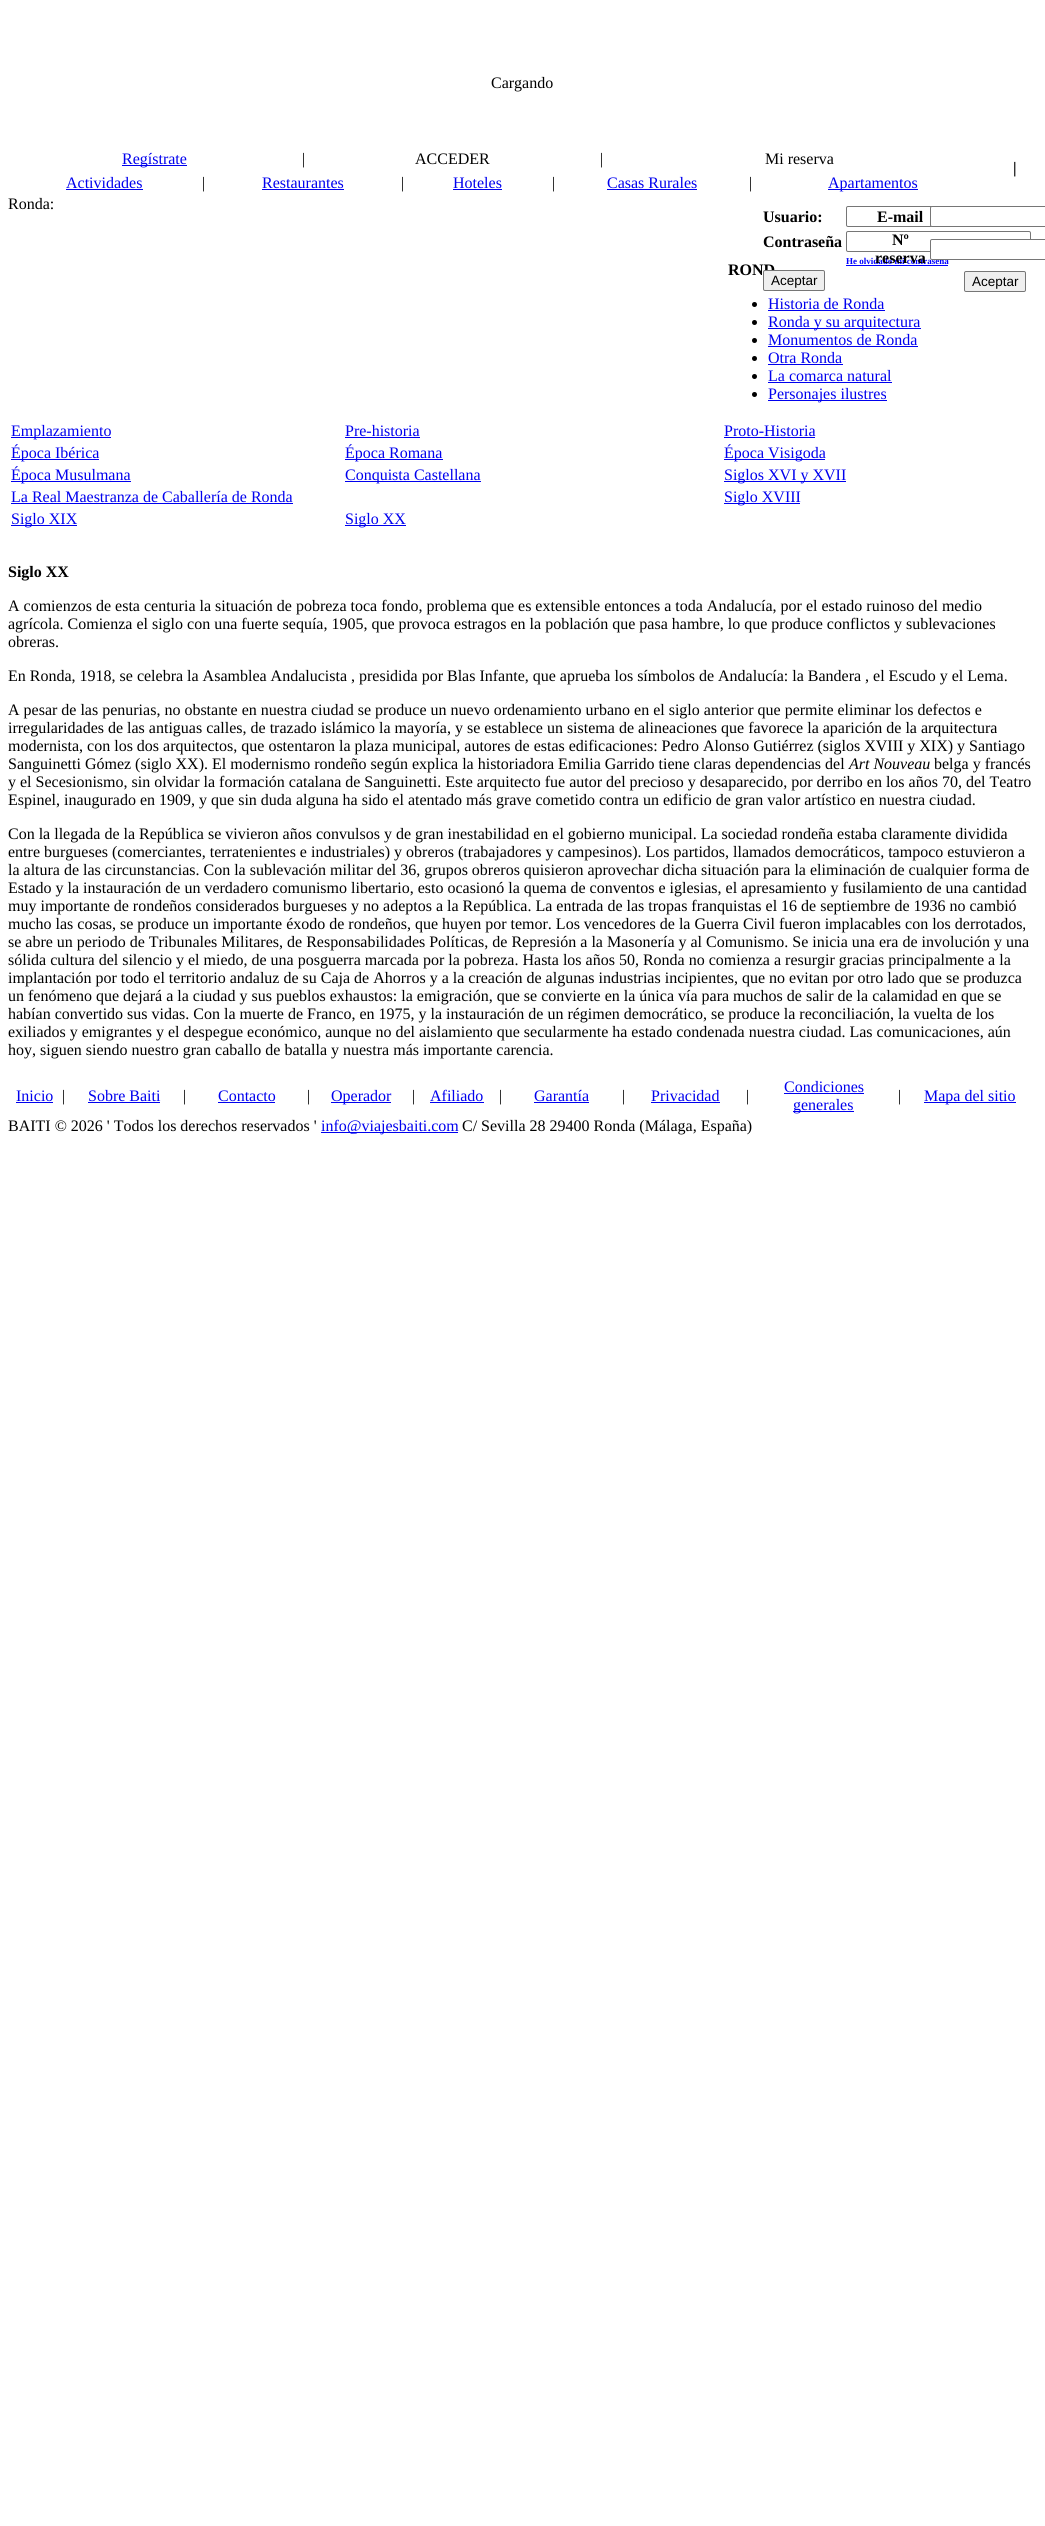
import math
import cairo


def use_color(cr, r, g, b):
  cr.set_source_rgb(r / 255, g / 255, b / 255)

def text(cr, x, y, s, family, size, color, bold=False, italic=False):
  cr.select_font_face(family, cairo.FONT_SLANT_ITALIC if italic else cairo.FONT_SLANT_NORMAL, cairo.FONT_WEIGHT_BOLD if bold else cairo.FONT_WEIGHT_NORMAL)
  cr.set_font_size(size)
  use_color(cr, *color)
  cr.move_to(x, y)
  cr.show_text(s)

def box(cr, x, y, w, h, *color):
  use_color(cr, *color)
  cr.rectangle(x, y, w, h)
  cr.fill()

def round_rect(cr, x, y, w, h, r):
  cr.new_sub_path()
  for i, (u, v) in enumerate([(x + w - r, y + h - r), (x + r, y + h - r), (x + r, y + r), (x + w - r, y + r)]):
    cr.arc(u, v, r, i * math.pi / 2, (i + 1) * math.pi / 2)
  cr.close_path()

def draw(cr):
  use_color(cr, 255, 255, 255)
  cr.paint()
  box(cr, 122, 165, 65, 1, 0, 0, 238)
  round_rect(cr, 846.5, 206.5, 184, 20, 1.5)
  use_color(cr, 118, 118, 118)
  cr.set_line_width(1)
  cr.stroke()
  round_rect(cr, 846.5, 231.5, 184, 20, 1.5)
  cr.stroke()
  box(cr, 846, 265, 102, 1, 0, 0, 255)
  use_color(cr, 255, 255, 255)
  round_rect(cr, 930.5, 206.5, 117, 20, 1.5)
  cr.fill_preserve()
  use_color(cr, 118, 118, 118)
  cr.stroke()
  use_color(cr, 239, 239, 239)
  round_rect(cr, 964.5, 271.5, 61, 20, 1.5)
  cr.fill_preserve()
  use_color(cr, 118, 118, 118)
  cr.stroke()
  box(cr, 66, 189, 77, 1, 0, 0, 238)
  box(cr, 262, 189, 82, 1, 0, 0, 238)
  box(cr, 453, 189, 49, 1, 0, 0, 238)
  box(cr, 607, 189, 90, 1, 0, 0, 238)
  box(cr, 828, 189, 90, 1, 0, 0, 238)
  use_color(cr, 0, 0, 0)
  cr.arc(754.5, 304.5, 2.5, 0, 2 * math.pi)
  cr.fill()
  box(cr, 768, 310, 117, 1, 0, 0, 238)
  use_color(cr, 0, 0, 0)
  cr.arc(754.5, 322.5, 2.5, 0, 2 * math.pi)
  cr.fill()
  box(cr, 768, 328, 153, 1, 0, 0, 238)
  use_color(cr, 0, 0, 0)
  cr.arc(754.5, 340.5, 2.5, 0, 2 * math.pi)
  cr.fill()
  box(cr, 768, 346, 150, 1, 0, 0, 238)
  use_color(cr, 0, 0, 0)
  cr.arc(754.5, 358.5, 2.5, 0, 2 * math.pi)
  cr.fill()
  box(cr, 768, 364, 75, 1, 0, 0, 238)
  use_color(cr, 0, 0, 0)
  cr.arc(754.5, 376.5, 2.5, 0, 2 * math.pi)
  cr.fill()
  box(cr, 768, 382, 124, 1, 0, 0, 238)
  use_color(cr, 0, 0, 0)
  cr.arc(754.5, 394.5, 2.5, 0, 2 * math.pi)
  cr.fill()
  box(cr, 768, 400, 119, 1, 0, 0, 238)
  box(cr, 11, 437, 100, 1, 0, 0, 238)
  box(cr, 345, 437, 75, 1, 0, 0, 238)
  box(cr, 724, 437, 91, 1, 0, 0, 238)
  box(cr, 11, 459, 88, 1, 0, 0, 238)
  box(cr, 345, 459, 98, 1, 0, 0, 238)
  box(cr, 724, 459, 101, 1, 0, 0, 238)
  box(cr, 11, 481, 120, 1, 0, 0, 238)
  box(cr, 345, 481, 136, 1, 0, 0, 238)
  box(cr, 724, 481, 122, 1, 0, 0, 238)
  box(cr, 11, 503, 282, 1, 0, 0, 238)
  box(cr, 724, 503, 76, 1, 0, 0, 238)
  box(cr, 11, 525, 66, 1, 0, 0, 238)
  box(cr, 345, 525, 61, 1, 0, 0, 238)
  box(cr, 16, 1102, 37, 1, 0, 0, 238)
  box(cr, 88, 1102, 72, 1, 0, 0, 238)
  box(cr, 218, 1102, 57, 1, 0, 0, 238)
  box(cr, 331, 1102, 60, 1, 0, 0, 238)
  box(cr, 430, 1102, 54, 1, 0, 0, 238)
  box(cr, 534, 1102, 55, 1, 0, 0, 238)
  box(cr, 651, 1102, 69, 1, 0, 0, 238)
  box(cr, 784, 1093, 80, 1, 0, 0, 238)
  box(cr, 793, 1111, 61, 1, 0, 0, 238)
  box(cr, 924, 1102, 92, 1, 0, 0, 238)
  box(cr, 321, 1132, 137, 1, 0, 0, 238)
  text(cr, 491, 88, "Cargando", "Liberation Serif", 16, (0, 0, 0))
  text(cr, 122, 164, "Regístrate", "Liberation Serif", 16, (0, 0, 238))
  text(cr, 302, 164, "|", "Liberation Serif", 16, (0, 0, 0))
  text(cr, 415, 164, "ACCEDER", "Liberation Serif", 16, (0, 0, 0))
  text(cr, 600, 164, "|", "Liberation Serif", 16, (0, 0, 0))
  text(cr, 765, 164, "Mi reserva", "Liberation Serif", 16, (0, 0, 0))
  text(cr, 1013, 173, "|", "Liberation Serif", 16, (0, 0, 0), bold=True)
  text(cr, 763, 222, "Usuario:", "Liberation Serif", 16, (0, 0, 0), bold=True)
  text(cr, 763, 247, "Contraseña", "Liberation Serif", 16, (0, 0, 0), bold=True)
  text(cr, 846, 264, "He olvidado mi contraseña", "Liberation Serif", 9, (0, 0, 255), bold=True)
  text(cr, 877, 222, "E-mail", "Liberation Serif", 16, (0, 0, 0), bold=True)
  text(cr, 892, 245, "Nº", "Liberation Serif", 16, (0, 0, 0), bold=True)
  text(cr, 875, 263, "reserva", "Liberation Serif", 16, (0, 0, 0), bold=True)
  use_color(cr, 255, 255, 255)
  round_rect(cr, 930.5, 239.5, 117, 20, 1.5)
  cr.fill_preserve()
  use_color(cr, 118, 118, 118)
  cr.stroke()
  text(cr, 972, 286, "Aceptar", "Liberation Sans", 13.5, (0, 0, 0))
  text(cr, 66, 188, "Actividades", "Liberation Serif", 16, (0, 0, 238))
  text(cr, 202, 188, "|", "Liberation Serif", 16, (0, 0, 0))
  text(cr, 262, 188, "Restaurantes", "Liberation Serif", 16, (0, 0, 238))
  text(cr, 401, 188, "|", "Liberation Serif", 16, (0, 0, 0))
  text(cr, 453, 188, "Hoteles", "Liberation Serif", 16, (0, 0, 238))
  text(cr, 552, 188, "|", "Liberation Serif", 16, (0, 0, 0))
  text(cr, 607, 188, "Casas Rurales", "Liberation Serif", 16, (0, 0, 238))
  text(cr, 749, 188, "|", "Liberation Serif", 16, (0, 0, 0))
  text(cr, 828, 188, "Apartamentos", "Liberation Serif", 16, (0, 0, 238))
  text(cr, 8, 209, "Ronda:", "Liberation Serif", 16, (0, 0, 0))
  text(cr, 728, 275, "ROND", "Liberation Serif", 16, (0, 0, 0), bold=True)
  use_color(cr, 239, 239, 239)
  round_rect(cr, 763.5, 270.5, 61, 20, 1.5)
  cr.fill_preserve()
  use_color(cr, 118, 118, 118)
  cr.stroke()
  text(cr, 771, 285, "Aceptar", "Liberation Sans", 13.5, (0, 0, 0))
  text(cr, 768, 309, "Historia de Ronda", "Liberation Serif", 16, (0, 0, 238))
  text(cr, 768, 327, "Ronda y su arquitectura", "Liberation Serif", 16, (0, 0, 238))
  text(cr, 768, 345, "Monumentos de Ronda", "Liberation Serif", 16, (0, 0, 238))
  text(cr, 768, 363, "Otra Ronda", "Liberation Serif", 16, (0, 0, 238))
  text(cr, 768, 381, "La comarca natural", "Liberation Serif", 16, (0, 0, 238))
  text(cr, 768, 399, "Personajes ilustres", "Liberation Serif", 16, (0, 0, 238))
  text(cr, 11, 436, "Emplazamiento", "Liberation Serif", 16, (0, 0, 238))
  text(cr, 345, 436, "Pre-historia", "Liberation Serif", 16, (0, 0, 238))
  text(cr, 724, 436, "Proto-Historia", "Liberation Serif", 16, (0, 0, 238))
  text(cr, 11, 458, "Época Ibérica", "Liberation Serif", 16, (0, 0, 238))
  text(cr, 345, 458, "Época Romana", "Liberation Serif", 16, (0, 0, 238))
  text(cr, 724, 458, "Época Visigoda", "Liberation Serif", 16, (0, 0, 238))
  text(cr, 11, 480, "Época Musulmana", "Liberation Serif", 16, (0, 0, 238))
  text(cr, 345, 480, "Conquista Castellana", "Liberation Serif", 16, (0, 0, 238))
  text(cr, 724, 480, "Siglos XVI y XVII", "Liberation Serif", 16, (0, 0, 238))
  text(cr, 11, 502, "La Real Maestranza de Caballería de Ronda", "Liberation Serif", 16, (0, 0, 238))
  text(cr, 724, 502, "Siglo XVIII", "Liberation Serif", 16, (0, 0, 238))
  text(cr, 11, 524, "Siglo XIX", "Liberation Serif", 16, (0, 0, 238))
  text(cr, 345, 524, "Siglo XX", "Liberation Serif", 16, (0, 0, 238))
  text(cr, 8, 577, "Siglo XX", "Liberation Serif", 16, (0, 0, 0), bold=True)
  text(cr, 8, 611, "A comienzos de esta centuria la situación de pobreza toca fondo, problema que es extensible entonces a toda Andalucía, por el estado ruinoso del medio", "Liberation Serif", 16, (0, 0, 0))
  text(cr, 8, 629, "agrícola. Comienza el siglo con una fuerte sequía, 1905, que provoca estragos en la población que pasa hambre, lo que produce conflictos y sublevaciones", "Liberation Serif", 16, (0, 0, 0))
  text(cr, 8, 647, "obreras.", "Liberation Serif", 16, (0, 0, 0))
  text(cr, 8, 681, "En Ronda, 1918, se celebra la Asamblea Andalucista , presidida por Blas Infante, que aprueba los símbolos de Andalucía: la Bandera , el Escudo y el Lema.", "Liberation Serif", 16, (0, 0, 0))
  text(cr, 8, 715, "A pesar de las penurias, no obstante en nuestra ciudad se produce un nuevo ordenamiento urbano en el siglo anterior que permite eliminar los defectos e", "Liberation Serif", 16, (0, 0, 0))
  text(cr, 8, 733, "irregularidades de las antiguas calles, de trazado islámico la mayoría, y se establece un sistema de alineaciones que favorece la aparición de la arquitectura", "Liberation Serif", 16, (0, 0, 0))
  text(cr, 8, 751, "modernista, con los dos arquitectos, que ostentaron la plaza municipal, autores de estas edificaciones: Pedro Alonso Gutiérrez (siglos XVIII y XIX) y Santiago", "Liberation Serif", 16, (0, 0, 0))
  text(cr, 8, 769, "Sanguinetti Gómez (siglo XX). El modernismo rondeño según explica la historiadora Emilia Garrido tiene claras dependencias del", "Liberation Serif", 16, (0, 0, 0))
  text(cr, 849, 769, "Art Nouveau", "Liberation Serif", 16, (0, 0, 0), italic=True)
  text(cr, 934, 769, "belga y francés", "Liberation Serif", 16, (0, 0, 0))
  text(cr, 8, 787, "y el Secesionismo, sin olvidar la formación catalana de Sanguinetti. Este arquitecto fue autor del precioso y desaparecido, por derribo en los años 70, del Teatro", "Liberation Serif", 16, (0, 0, 0))
  text(cr, 8, 805, "Espinel, inaugurado en 1909, y que sin duda alguna ha sido el atentado más grave cometido contra un edificio de gran valor artístico en nuestra ciudad.", "Liberation Serif", 16, (0, 0, 0))
  text(cr, 8, 839, "Con la llegada de la República se vivieron años convulsos y de gran inestabilidad en el gobierno municipal. La sociedad rondeña estaba claramente dividida", "Liberation Serif", 16, (0, 0, 0))
  text(cr, 8, 857, "entre burgueses (comerciantes, terratenientes e industriales) y obreros (trabajadores y campesinos). Los partidos, llamados democráticos, tampoco estuvieron a", "Liberation Serif", 16, (0, 0, 0))
  text(cr, 8, 875, "la altura de las circunstancias. Con la sublevación militar del 36, grupos obreros quisieron aprovechar dicha situación para la eliminación de cualquier forma de", "Liberation Serif", 16, (0, 0, 0))
  text(cr, 8, 893, "Estado y la instauración de un verdadero comunismo libertario, esto ocasionó la quema de conventos e iglesias, el apresamiento y fusilamiento de una cantidad", "Liberation Serif", 16, (0, 0, 0))
  text(cr, 8, 911, "muy importante de rondeños considerados burgueses y no adeptos a la República. La entrada de las tropas franquistas el 16 de septiembre de 1936 no cambió", "Liberation Serif", 16, (0, 0, 0))
  text(cr, 8, 929, "mucho las cosas, se produce un importante éxodo de rondeños, que huyen por temor. Los vencedores de la Guerra Civil fueron implacables con los derrotados,", "Liberation Serif", 16, (0, 0, 0))
  text(cr, 8, 947, "se abre un periodo de Tribunales Militares, de Responsabilidades Políticas, de Represión a la Masonería y al Comunismo. Se inicia una era de involución y una", "Liberation Serif", 16, (0, 0, 0))
  text(cr, 8, 965, "sólida cultura del silencio y el miedo, de una posguerra marcada por la pobreza. Hasta los años 50, Ronda no comienza a resurgir gracias principalmente a la", "Liberation Serif", 16, (0, 0, 0))
  text(cr, 8, 983, "implantación por todo el territorio andaluz de su Caja de Ahorros y a la creación de algunas industrias incipientes, que no evitan por otro lado que se produzca", "Liberation Serif", 16, (0, 0, 0))
  text(cr, 8, 1001, "un fenómeno que dejará a la ciudad y sus pueblos exhaustos: la emigración, que se convierte en la única vía para muchos de salir de la calamidad en que se", "Liberation Serif", 16, (0, 0, 0))
  text(cr, 8, 1019, "habían convertido sus vidas. Con la muerte de Franco, en 1975, y la instauración de un régimen democrático, se produce la reconciliación, la vuelta de los", "Liberation Serif", 16, (0, 0, 0))
  text(cr, 8, 1037, "exiliados y emigrantes y el despegue económico, aunque no del aislamiento que secularmente ha estado condenada nuestra ciudad. Las comunicaciones, aún", "Liberation Serif", 16, (0, 0, 0))
  text(cr, 8, 1055, "hoy, siguen siendo nuestro gran caballo de batalla y nuestra más importante carencia.", "Liberation Serif", 16, (0, 0, 0))
  text(cr, 16, 1101, "Inicio", "Liberation Serif", 16, (0, 0, 238))
  text(cr, 62, 1101, "|", "Liberation Serif", 16, (0, 0, 0))
  text(cr, 88, 1101, "Sobre Baiti", "Liberation Serif", 16, (0, 0, 238))
  text(cr, 183, 1101, "|", "Liberation Serif", 16, (0, 0, 0))
  text(cr, 218, 1101, "Contacto", "Liberation Serif", 16, (0, 0, 238))
  text(cr, 307, 1101, "|", "Liberation Serif", 16, (0, 0, 0))
  text(cr, 331, 1101, "Operador", "Liberation Serif", 16, (0, 0, 238))
  text(cr, 412, 1101, "|", "Liberation Serif", 16, (0, 0, 0))
  text(cr, 430, 1101, "Afiliado", "Liberation Serif", 16, (0, 0, 238))
  text(cr, 499, 1101, "|", "Liberation Serif", 16, (0, 0, 0))
  text(cr, 534, 1101, "Garantía", "Liberation Serif", 16, (0, 0, 238))
  text(cr, 622, 1101, "|", "Liberation Serif", 16, (0, 0, 0))
  text(cr, 651, 1101, "Privacidad", "Liberation Serif", 16, (0, 0, 238))
  text(cr, 746, 1101, "|", "Liberation Serif", 16, (0, 0, 0))
  text(cr, 784, 1092, "Condiciones", "Liberation Serif", 16, (0, 0, 238))
  text(cr, 793, 1110, "generales", "Liberation Serif", 16, (0, 0, 238))
  text(cr, 898, 1101, "|", "Liberation Serif", 16, (0, 0, 0))
  text(cr, 924, 1101, "Mapa del sitio", "Liberation Serif", 16, (0, 0, 238))
  text(cr, 8, 1131, "BAITI © 2026 ' Todos los derechos reservados '", "Liberation Serif", 16, (0, 0, 0))
  text(cr, 321, 1131, "info@viajesbaiti.com", "Liberation Serif", 16, (0, 0, 238))
  text(cr, 462, 1131, "C/ Sevilla 28 29400 Ronda (Málaga, España)", "Liberation Serif", 16, (0, 0, 0))


surface = cairo.ImageSurface(cairo.FORMAT_RGB24, 1045, 2526)
cr = cairo.Context(surface)
options = cairo.FontOptions()
options.set_hint_metrics(cairo.HINT_METRICS_OFF)
options.set_hint_style(cairo.HINT_STYLE_NONE)
cr.set_font_options(options)
cr.set_miter_limit(4)
draw(cr)
surface.write_to_png("out.png")
